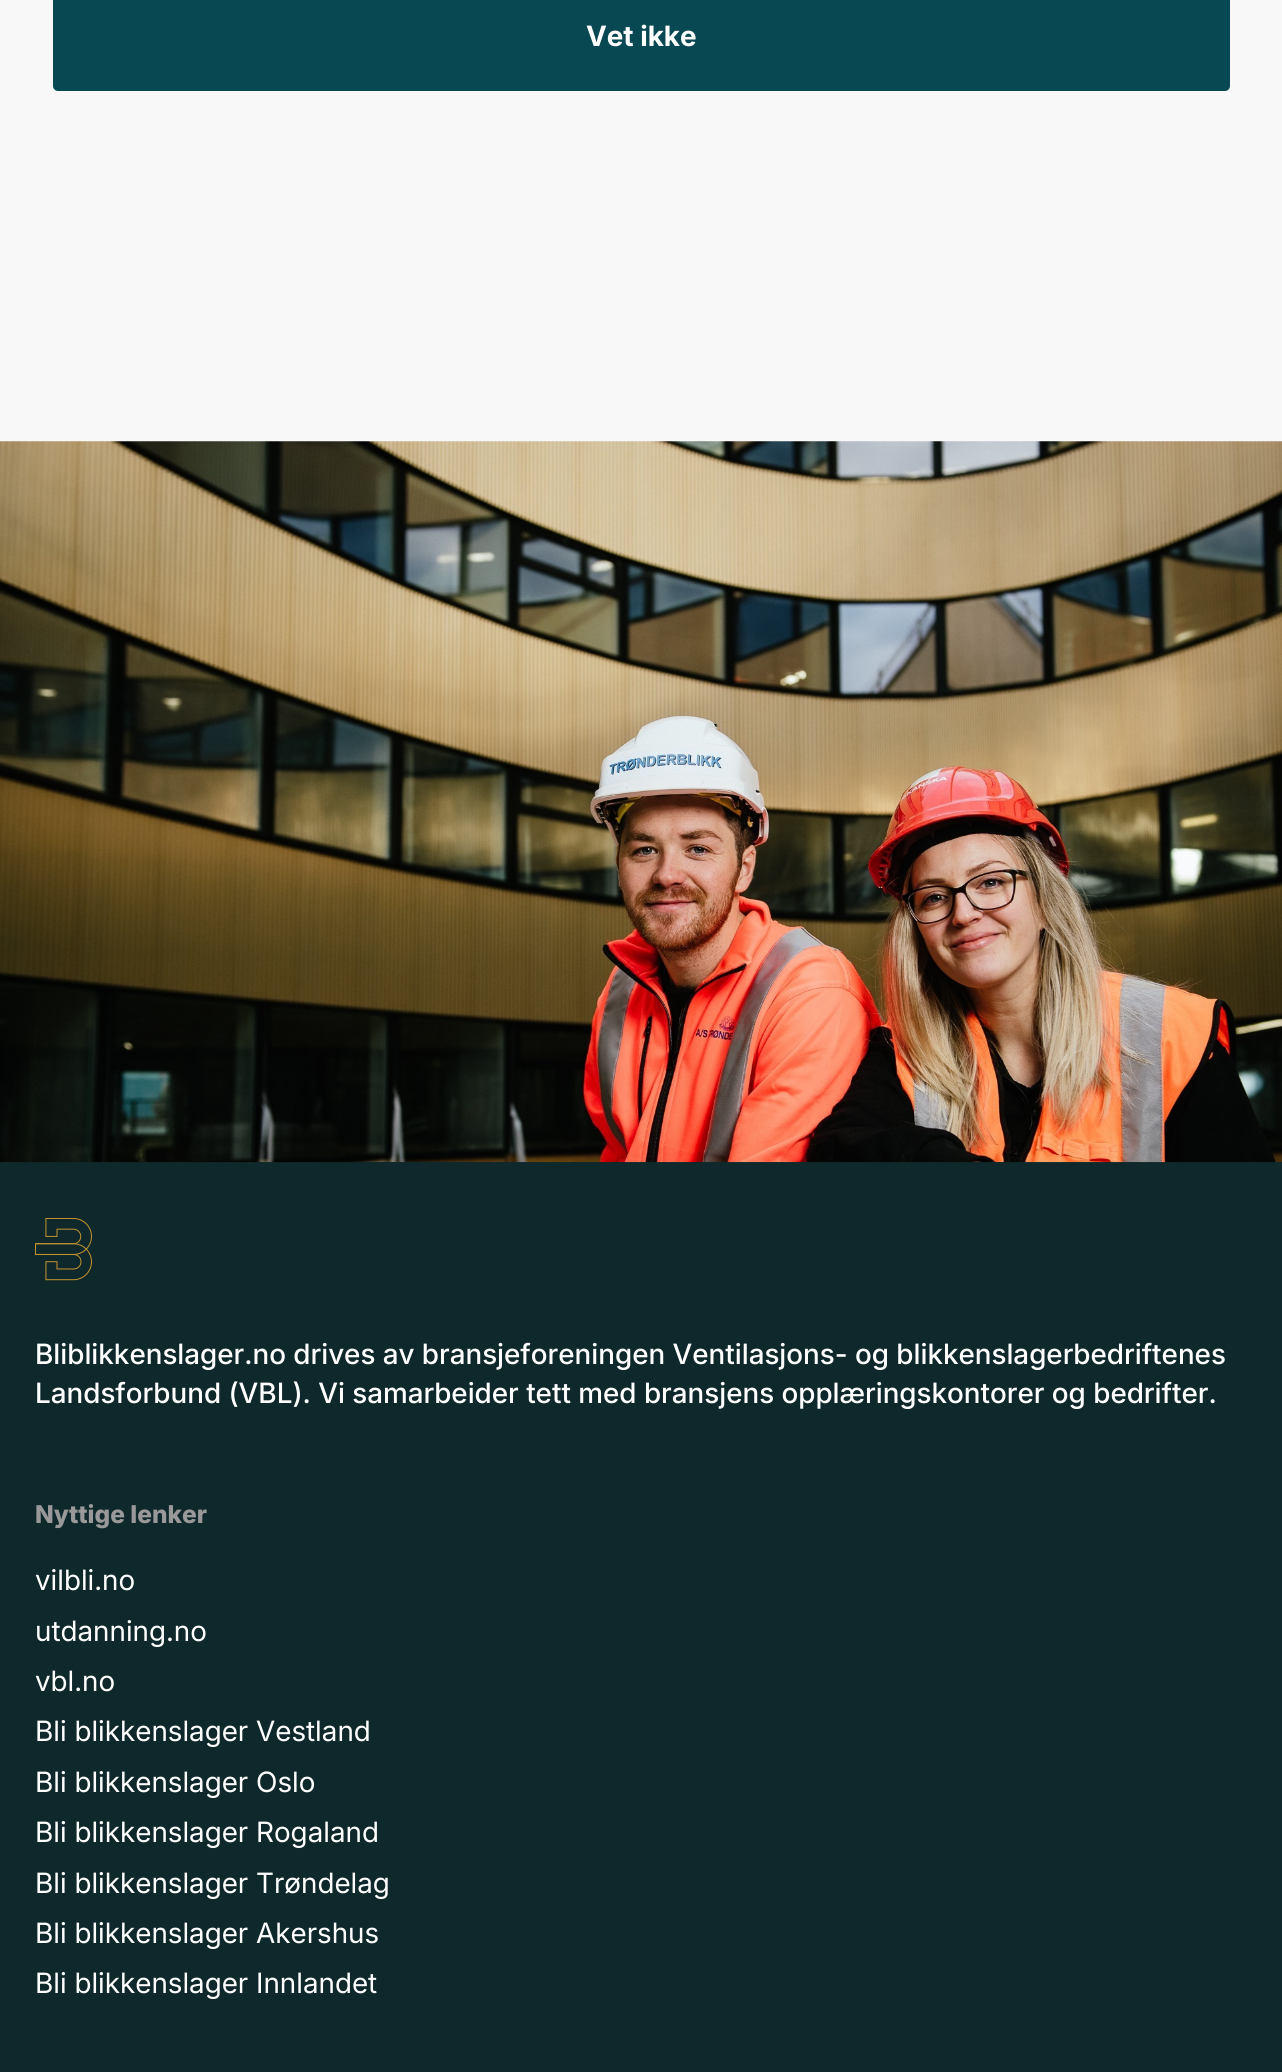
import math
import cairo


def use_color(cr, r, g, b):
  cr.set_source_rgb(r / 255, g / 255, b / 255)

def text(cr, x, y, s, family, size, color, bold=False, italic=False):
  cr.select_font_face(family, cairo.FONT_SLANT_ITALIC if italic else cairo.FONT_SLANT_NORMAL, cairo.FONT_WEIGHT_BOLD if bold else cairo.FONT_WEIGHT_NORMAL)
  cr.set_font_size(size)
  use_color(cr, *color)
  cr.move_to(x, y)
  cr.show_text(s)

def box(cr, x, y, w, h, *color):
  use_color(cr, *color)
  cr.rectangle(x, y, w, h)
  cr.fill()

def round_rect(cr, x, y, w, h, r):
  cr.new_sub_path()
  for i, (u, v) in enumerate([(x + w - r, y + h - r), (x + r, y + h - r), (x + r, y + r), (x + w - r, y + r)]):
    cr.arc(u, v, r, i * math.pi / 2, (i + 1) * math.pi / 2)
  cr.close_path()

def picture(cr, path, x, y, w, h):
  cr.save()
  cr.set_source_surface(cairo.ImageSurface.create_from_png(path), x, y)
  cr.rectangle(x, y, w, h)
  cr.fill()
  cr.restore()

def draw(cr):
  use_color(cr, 248, 248, 248)
  cr.paint()
  use_color(cr, 8, 72, 82)
  round_rect(cr, 53, -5, 1177, 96, 5)
  cr.fill()
  box(cr, 0, 1162, 1282, 910, 14, 40, 43)
  picture(cr, "img_01.png", 0, 441, 1282, 722)
  picture(cr, "img_02.png", 35, 1218, 57, 63)
  text(cr, 586, 46, "Vet ikke", "Inter", 28, (255, 255, 255), bold=True)
  text(cr, 35, 1364, "Bliblikkenslager.no drives av bransjeforeningen Ventilasjons- og blikkenslagerbedriftenes", "Inter Medium", 28, (255, 255, 255))
  text(cr, 35, 1403, "Landsforbund (VBL). Vi samarbeider tett med bransjens opplæringskontorer og bedrifter.", "Inter Medium", 28, (255, 255, 255))
  text(cr, 35, 1523, "Nyttige lenker", "Inter ExtraBold", 24.5, (153, 153, 153))
  text(cr, 35, 1590, "vilbli.no", "Inter", 28, (255, 255, 255))
  text(cr, 35, 1641, "utdanning.no", "Inter", 28, (255, 255, 255))
  text(cr, 35, 1691, "vbl.no", "Inter", 28, (255, 255, 255))
  text(cr, 35, 1741, "Bli blikkenslager Vestland", "Inter", 28, (255, 255, 255))
  text(cr, 35, 1792, "Bli blikkenslager Oslo", "Inter", 28, (255, 255, 255))
  text(cr, 35, 1842, "Bli blikkenslager Rogaland", "Inter", 28, (255, 255, 255))
  text(cr, 35, 1893, "Bli blikkenslager Trøndelag", "Inter", 28, (255, 255, 255))
  text(cr, 35, 1943, "Bli blikkenslager Akershus", "Inter", 28, (255, 255, 255))
  text(cr, 35, 1993, "Bli blikkenslager Innlandet", "Inter", 28, (255, 255, 255))


surface = cairo.ImageSurface(cairo.FORMAT_RGB24, 1282, 2072)
cr = cairo.Context(surface)
options = cairo.FontOptions()
options.set_hint_metrics(cairo.HINT_METRICS_OFF)
options.set_hint_style(cairo.HINT_STYLE_NONE)
cr.set_font_options(options)
cr.set_miter_limit(4)
draw(cr)
surface.write_to_png("out.png")
